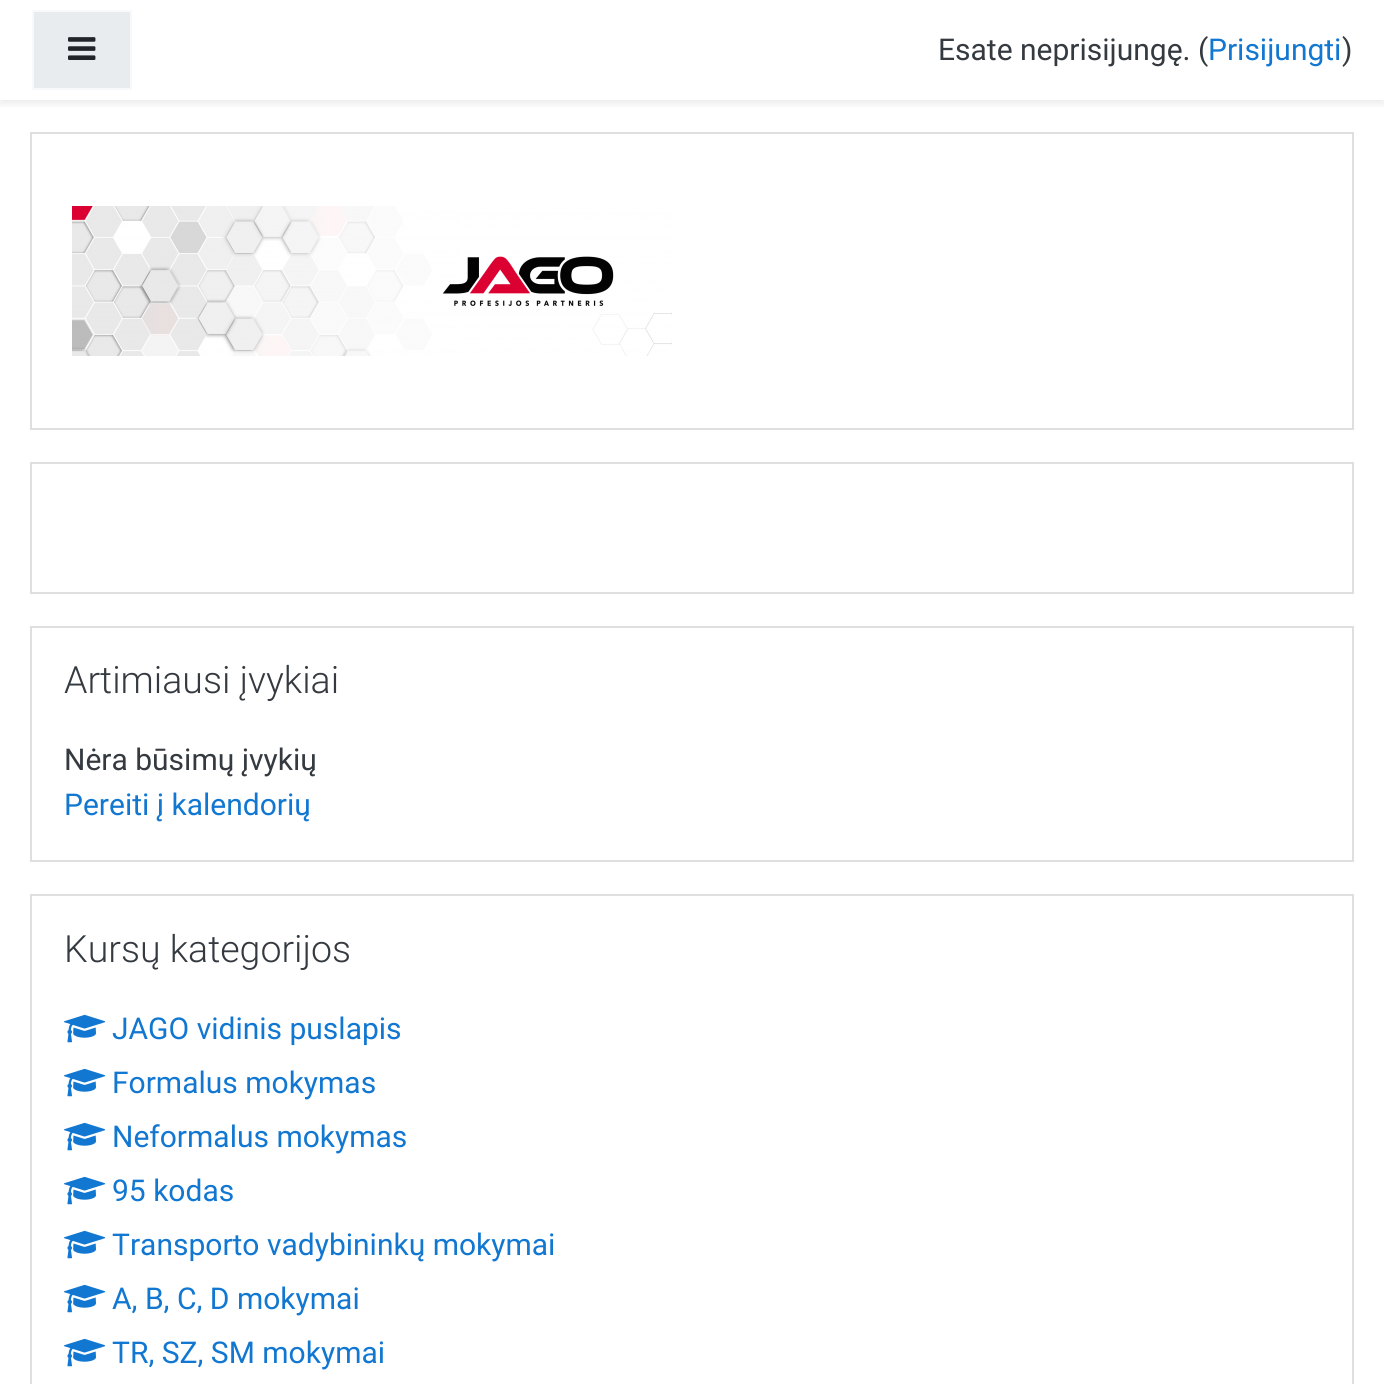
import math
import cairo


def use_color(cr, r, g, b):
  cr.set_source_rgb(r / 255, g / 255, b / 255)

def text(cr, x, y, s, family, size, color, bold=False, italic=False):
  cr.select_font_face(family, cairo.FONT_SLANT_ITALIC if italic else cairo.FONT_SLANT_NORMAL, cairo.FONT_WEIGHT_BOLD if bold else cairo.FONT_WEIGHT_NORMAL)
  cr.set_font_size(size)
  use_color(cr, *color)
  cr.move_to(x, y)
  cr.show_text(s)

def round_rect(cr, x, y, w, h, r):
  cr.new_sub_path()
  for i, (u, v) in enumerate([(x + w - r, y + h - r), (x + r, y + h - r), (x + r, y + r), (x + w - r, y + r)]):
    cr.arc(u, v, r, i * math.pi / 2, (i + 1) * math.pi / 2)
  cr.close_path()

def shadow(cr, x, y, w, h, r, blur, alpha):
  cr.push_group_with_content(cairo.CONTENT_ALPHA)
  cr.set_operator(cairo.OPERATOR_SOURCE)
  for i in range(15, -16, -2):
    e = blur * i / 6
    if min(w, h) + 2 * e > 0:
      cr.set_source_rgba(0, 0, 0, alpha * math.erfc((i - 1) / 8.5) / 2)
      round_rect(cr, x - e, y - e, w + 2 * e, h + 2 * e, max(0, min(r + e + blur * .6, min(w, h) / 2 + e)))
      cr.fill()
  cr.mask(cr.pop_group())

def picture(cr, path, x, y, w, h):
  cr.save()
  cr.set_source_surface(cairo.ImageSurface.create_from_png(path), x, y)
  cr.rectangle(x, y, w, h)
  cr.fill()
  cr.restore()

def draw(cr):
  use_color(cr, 255, 255, 255)
  cr.paint()
  cr.save()
  cr.rectangle(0, 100, 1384, 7)
  cr.clip()
  use_color(cr, 0, 0, 0)
  shadow(cr, 0, 4, 1384, 100, 0, 4, 0.08)
  cr.restore()
  use_color(cr, 233, 236, 239)
  cr.rectangle(33, 11, 98, 78)
  cr.fill_preserve()
  use_color(cr, 248, 249, 250)
  cr.stroke()
  picture(cr, "img_01.png", 68, 37, 28, 23)
  cr.rectangle(31, 133, 1322, 296)
  use_color(cr, 223, 223, 223)
  cr.stroke()
  picture(cr, "img_02.png", 72, 206, 600, 150)
  cr.rectangle(31, 463, 1322, 130)
  cr.stroke()
  cr.rectangle(31, 627, 1322, 234)
  cr.stroke()
  cr.rectangle(31, 895, 1322, 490)
  cr.stroke()
  picture(cr, "img_03.png", 64, 1014, 42, 29)
  picture(cr, "img_03.png", 64, 1068, 42, 29)
  picture(cr, "img_03.png", 64, 1122, 42, 29)
  picture(cr, "img_03.png", 64, 1176, 42, 29)
  picture(cr, "img_03.png", 64, 1230, 42, 29)
  picture(cr, "img_03.png", 64, 1284, 42, 29)
  picture(cr, "img_03.png", 64, 1338, 42, 29)
  text(cr, 938, 60, "Esate neprisijungę. (", "Roboto", 30, (52, 58, 64))
  text(cr, 1208, 60, "Prisijungti", "Roboto", 30, (17, 119, 209))
  text(cr, 1342, 60, ")", "Roboto", 30, (52, 58, 64))
  text(cr, 64, 693, "Artimiausi įvykiai", "Roboto Light", 37.5, (52, 58, 64))
  text(cr, 64, 770, "Nėra būsimų įvykių", "Roboto", 30, (52, 58, 64))
  text(cr, 64, 815, "Pereiti į kalendorių", "Roboto", 30, (17, 119, 209))
  text(cr, 64, 962, "Kursų kategorijos", "Roboto Light", 37.5, (52, 58, 64))
  text(cr, 112, 1039, "JAGO vidinis puslapis", "Roboto", 30, (17, 119, 209))
  text(cr, 112, 1093, "Formalus mokymas", "Roboto", 30, (17, 119, 209))
  text(cr, 112, 1147, "Neformalus mokymas", "Roboto", 30, (17, 119, 209))
  text(cr, 112, 1201, "95 kodas", "Roboto", 30, (17, 119, 209))
  text(cr, 112, 1255, "Transporto vadybininkų mokymai", "Roboto", 30, (17, 119, 209))
  text(cr, 112, 1309, "A, B, C, D mokymai", "Roboto", 30, (17, 119, 209))
  text(cr, 112, 1363, "TR, SZ, SM mokymai", "Roboto", 30, (17, 119, 209))


surface = cairo.ImageSurface(cairo.FORMAT_RGB24, 1384, 1384)
cr = cairo.Context(surface)
options = cairo.FontOptions()
options.set_hint_metrics(cairo.HINT_METRICS_OFF)
options.set_hint_style(cairo.HINT_STYLE_NONE)
cr.set_font_options(options)
cr.set_miter_limit(4)
draw(cr)
surface.write_to_png("out.png")
